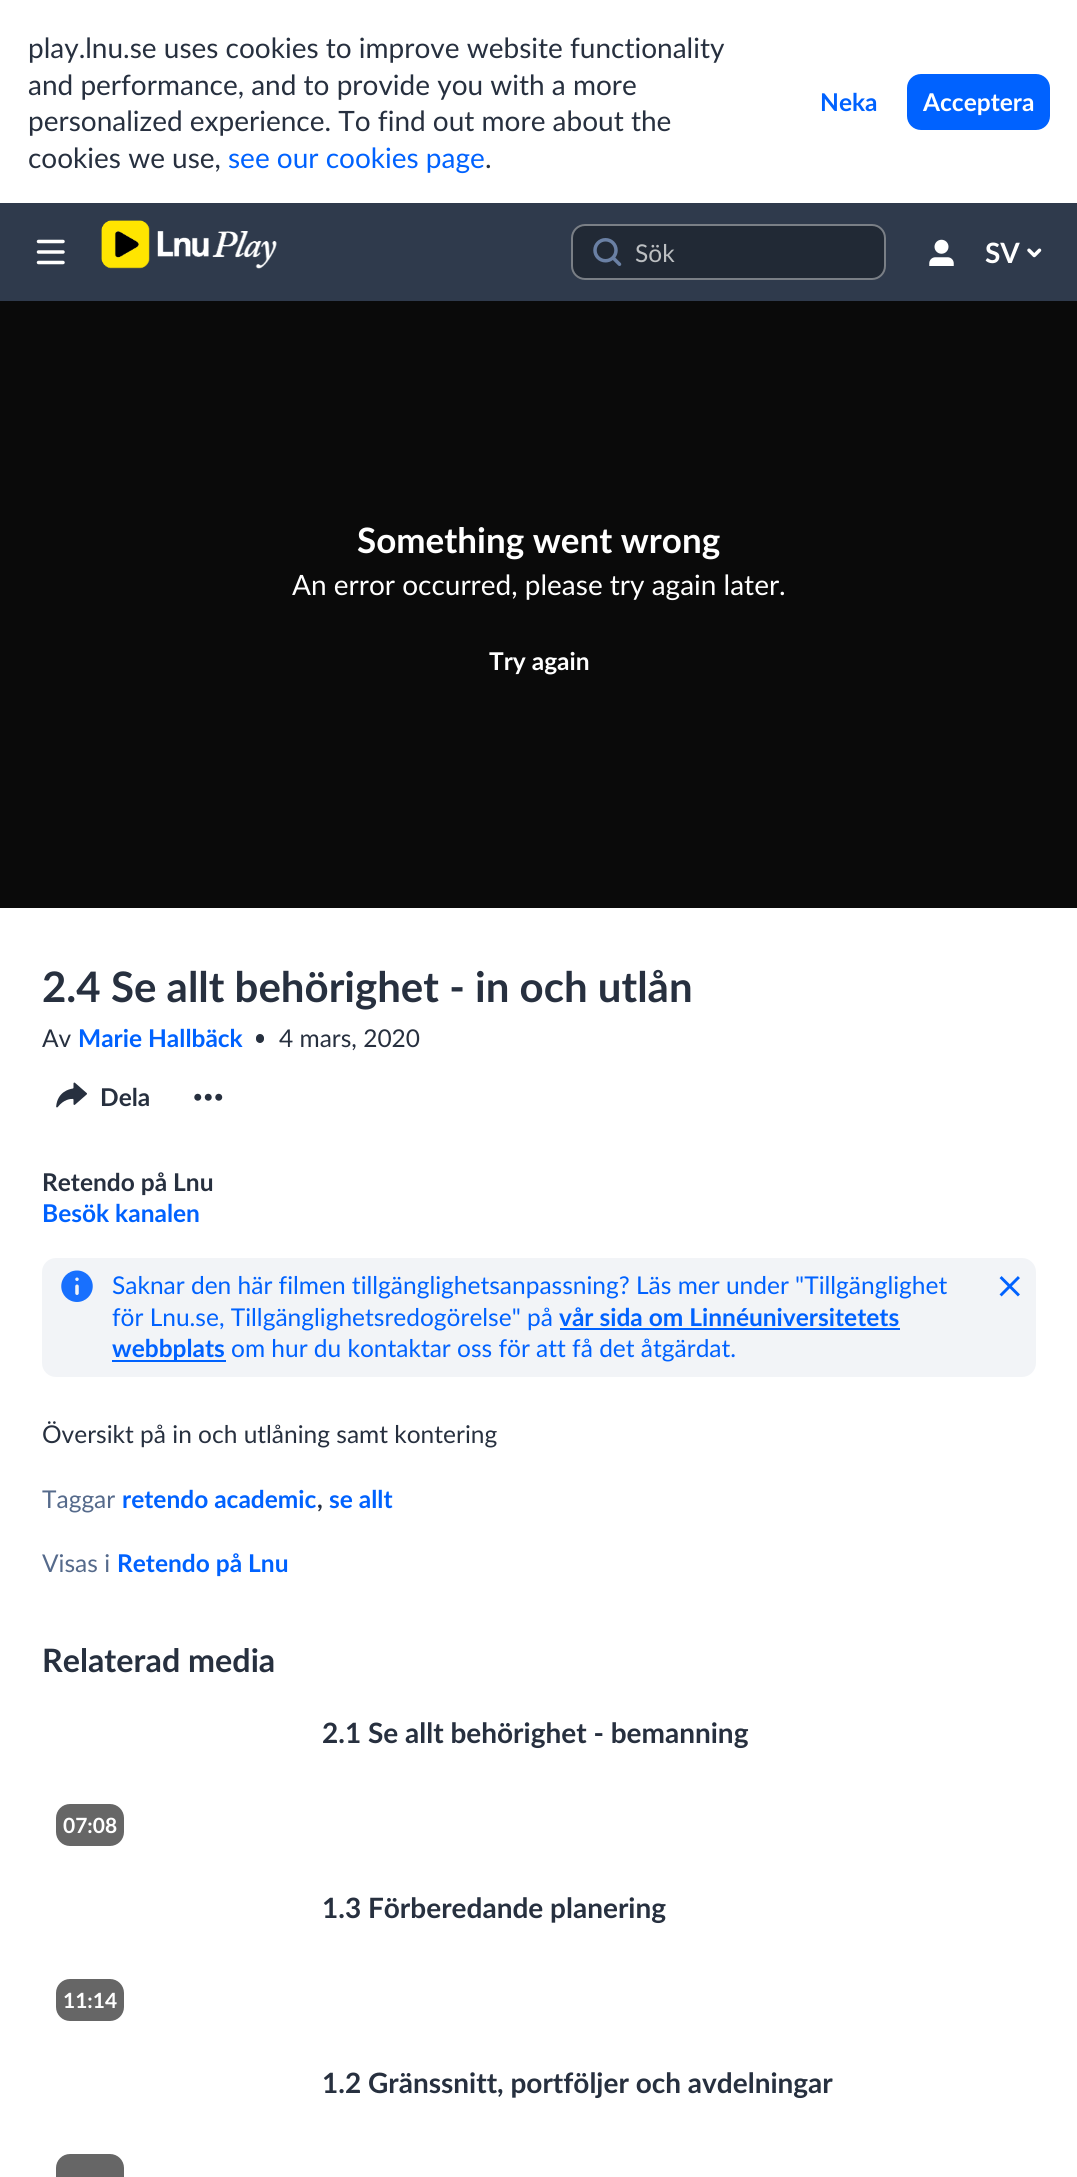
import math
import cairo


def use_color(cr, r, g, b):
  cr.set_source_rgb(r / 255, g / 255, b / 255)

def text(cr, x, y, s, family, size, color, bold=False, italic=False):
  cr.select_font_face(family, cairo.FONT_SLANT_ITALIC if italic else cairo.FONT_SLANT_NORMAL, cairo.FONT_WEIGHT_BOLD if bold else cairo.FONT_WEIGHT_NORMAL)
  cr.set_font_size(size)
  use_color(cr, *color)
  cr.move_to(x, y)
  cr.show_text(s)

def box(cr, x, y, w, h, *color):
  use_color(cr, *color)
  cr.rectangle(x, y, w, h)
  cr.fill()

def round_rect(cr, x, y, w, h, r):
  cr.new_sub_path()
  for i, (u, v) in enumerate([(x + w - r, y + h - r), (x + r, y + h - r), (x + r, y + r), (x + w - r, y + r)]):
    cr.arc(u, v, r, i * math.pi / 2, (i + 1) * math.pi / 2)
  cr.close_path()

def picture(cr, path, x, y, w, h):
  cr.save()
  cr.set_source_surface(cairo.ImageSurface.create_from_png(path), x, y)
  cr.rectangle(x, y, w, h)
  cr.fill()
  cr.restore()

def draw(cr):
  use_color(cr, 255, 255, 255)
  cr.paint()
  use_color(cr, 0, 98, 255)
  round_rect(cr, 907, 74, 143, 56, 14)
  cr.fill()
  box(cr, 0, 203, 1077, 98, 47, 58, 76)
  picture(cr, "img_01.png", 36, 239, 29, 26)
  picture(cr, "img_02.png", 101, 220, 176, 49)
  use_color(cr, 33, 41, 53)
  round_rect(cr, 571, 224, 315, 56, 14)
  cr.fill()
  round_rect(cr, 572, 225, 313, 54, 13)
  cr.set_source_rgba(1, 1, 1, 0.4)
  cr.stroke()
  picture(cr, "img_03.png", 593, 238, 29, 28)
  picture(cr, "img_04.png", 929, 239, 25, 27)
  picture(cr, "img_05.png", 1027, 248, 15, 10)
  box(cr, 0, 301, 1077, 607, 10, 10, 10)
  use_color(cr, 39, 48, 63)
  round_rect(cr, 256, 1034, 8, 9, 4)
  cr.fill()
  picture(cr, "img_06.png", 56, 1082, 31, 26)
  picture(cr, "img_07.png", 194, 1093, 29, 8)
  use_color(cr, 242, 244, 247)
  round_rect(cr, 42, 1258, 994, 119, 14)
  cr.fill()
  picture(cr, "img_08.png", 61, 1270, 32, 32)
  box(cr, 560, 1328, 340, 2, 0, 98, 255)
  box(cr, 112, 1360, 114, 2, 0, 98, 255)
  picture(cr, "img_09.png", 999, 1276, 21, 21)
  use_color(cr, 102, 102, 102)
  round_rect(cr, 56, 1804, 68, 42, 14)
  cr.fill()
  round_rect(cr, 56, 1979, 68, 42, 14)
  cr.fill()
  round_rect(cr, 56, 2154, 68, 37, 14)
  cr.fill()
  text(cr, 28, 58, "play.lnu.se uses cookies to improve website functionality", "Lato", 28, (39, 48, 63))
  text(cr, 28, 95, "and performance, and to provide you with a more", "Lato", 28, (39, 48, 63))
  text(cr, 28, 131, "personalized experience. To find out more about the", "Lato", 28, (39, 48, 63))
  text(cr, 28, 168, "cookies we use,", "Lato", 28, (39, 48, 63))
  text(cr, 228, 168, "see our cookies page", "Lato", 28, (0, 98, 255))
  text(cr, 485, 168, ".", "Lato", 28, (39, 48, 63))
  text(cr, 820, 111, "Neka", "Lato", 24.5, (0, 98, 255), bold=True)
  text(cr, 923, 111, "Acceptera", "Lato", 24.5, (255, 255, 255), bold=True)
  text(cr, 635, 262, "Sök", "Lato", 24.5, (188, 191, 194))
  text(cr, 985, 263, "SV", "Lato", 28, (255, 255, 255), bold=True)
  text(cr, 357, 553, "Something went wrong", "Lato", 35, (255, 255, 255), bold=True)
  text(cr, 292, 595, "An error occurred, please try again later.", "Lato", 28, (255, 255, 255))
  text(cr, 489, 670, "Try again", "Lato", 24.5, (255, 255, 255), bold=True)
  text(cr, 42, 1002, "2.4 Se allt behörighet - in och utlån", "Lato", 42, (39, 48, 63), bold=True)
  text(cr, 42, 1047, "Av", "Lato", 24.5, (39, 48, 63))
  text(cr, 78, 1047, "Marie Hallbäck", "Lato", 24.5, (0, 98, 255), bold=True)
  text(cr, 279, 1047, "4 mars, 2020", "Lato", 24.5, (39, 48, 63))
  text(cr, 100, 1106, "Dela", "Lato", 24.5, (39, 48, 63), bold=True)
  text(cr, 42, 1191, "Retendo på Lnu", "Lato", 24.5, (39, 48, 63), bold=True)
  text(cr, 42, 1222, "Besök kanalen", "Lato", 24.5, (0, 98, 255), bold=True)
  text(cr, 112, 1294, "Saknar den här filmen tillgänglighetsanpassning? Läs mer under \"Tillgänglighet", "Lato", 24.5, (0, 98, 255))
  text(cr, 112, 1326, "för Lnu.se, Tillgänglighetsredogörelse\" på", "Lato", 24.5, (0, 98, 255))
  text(cr, 559, 1326, "vår sida om Linnéuniversitetets", "Lato", 24.5, (0, 98, 255), bold=True)
  text(cr, 112, 1357, "webbplats", "Lato", 24.5, (0, 98, 255), bold=True)
  text(cr, 231, 1357, "om hur du kontaktar oss för att få det åtgärdat.", "Lato", 24.5, (0, 98, 255))
  text(cr, 42, 1443, "Översikt på in och utlåning samt kontering", "Lato", 24.5, (39, 48, 63))
  text(cr, 42, 1508, "Taggar", "Lato", 24.5, (85, 106, 139))
  text(cr, 122, 1508, "retendo academic", "Lato", 24.5, (0, 98, 255), bold=True)
  text(cr, 317, 1508, ",", "Lato", 24.5, (39, 48, 63), bold=True)
  text(cr, 329, 1508, "se allt", "Lato", 24.5, (0, 98, 255), bold=True)
  text(cr, 42, 1572, "Visas i", "Lato", 24.5, (85, 106, 139))
  text(cr, 117, 1572, "Retendo på Lnu", "Lato", 24.5, (0, 98, 255), bold=True)
  text(cr, 42, 1672, "Relaterad media", "Lato", 32.25, (39, 48, 63), bold=True)
  text(cr, 322, 1743, "2.1 Se allt behörighet - bemanning", "Lato", 28, (39, 48, 63), bold=True)
  text(cr, 63, 1833, "07:08", "Lato", 21, (255, 255, 255), bold=True)
  text(cr, 322, 1918, "1.3 Förberedande planering", "Lato", 28, (39, 48, 63), bold=True)
  text(cr, 63, 2008, "11:14", "Lato", 21, (255, 255, 255), bold=True)
  text(cr, 322, 2093, "1.2 Gränssnitt, portföljer och avdelningar", "Lato", 28, (39, 48, 63), bold=True)


surface = cairo.ImageSurface(cairo.FORMAT_RGB24, 1077, 2177)
cr = cairo.Context(surface)
options = cairo.FontOptions()
options.set_hint_metrics(cairo.HINT_METRICS_OFF)
options.set_hint_style(cairo.HINT_STYLE_NONE)
cr.set_font_options(options)
cr.set_miter_limit(4)
draw(cr)
surface.write_to_png("out.png")
